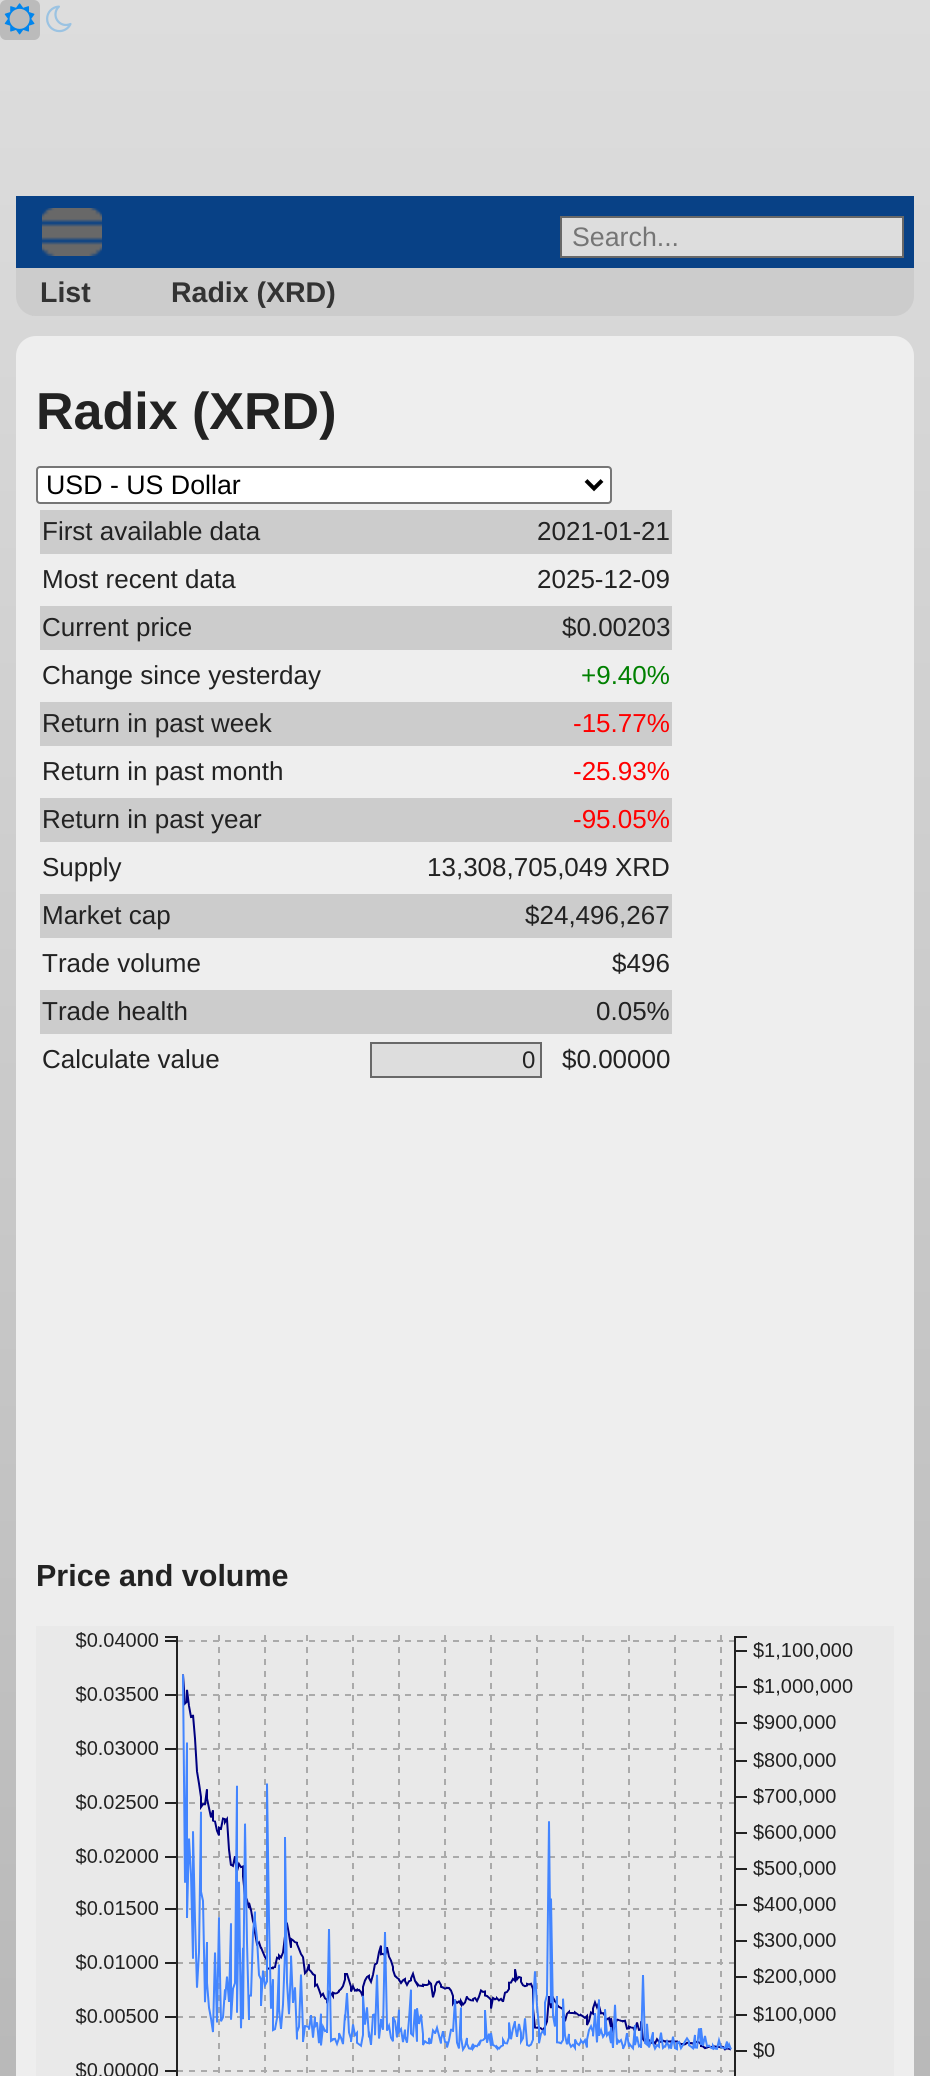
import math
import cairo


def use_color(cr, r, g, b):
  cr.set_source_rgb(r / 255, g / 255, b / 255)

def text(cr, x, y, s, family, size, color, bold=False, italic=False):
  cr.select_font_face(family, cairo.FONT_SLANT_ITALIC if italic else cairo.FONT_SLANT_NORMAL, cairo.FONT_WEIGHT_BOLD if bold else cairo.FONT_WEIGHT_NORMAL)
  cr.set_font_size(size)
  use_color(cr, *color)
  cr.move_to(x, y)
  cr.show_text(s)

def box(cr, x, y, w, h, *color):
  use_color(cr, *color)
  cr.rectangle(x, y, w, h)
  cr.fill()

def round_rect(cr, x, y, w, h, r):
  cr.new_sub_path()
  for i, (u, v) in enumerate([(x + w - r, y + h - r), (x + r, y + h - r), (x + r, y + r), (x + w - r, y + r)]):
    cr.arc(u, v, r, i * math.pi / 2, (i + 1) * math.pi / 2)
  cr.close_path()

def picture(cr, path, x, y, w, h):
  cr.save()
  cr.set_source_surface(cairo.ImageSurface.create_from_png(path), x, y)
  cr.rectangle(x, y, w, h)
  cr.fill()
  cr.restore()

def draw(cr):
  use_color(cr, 255, 255, 255)
  cr.paint()
  gradient = cairo.LinearGradient(465, 0, 465, 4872)
  gradient.add_color_stop_rgba(0, 0.867, 0.867, 0.867, 1)
  gradient.add_color_stop_rgba(1, 0.533, 0.533, 0.533, 1)
  cr.set_source(gradient)
  cr.rectangle(0, 0, 930, 2076)
  cr.fill()
  use_color(cr, 187, 187, 187)
  round_rect(cr, 0, 0, 40, 40, 6)
  cr.fill()
  picture(cr, "img_01.png", 4, 3, 31, 32)
  picture(cr, "img_02.png", 46, 5, 26, 28)
  box(cr, 16, 196, 898, 72, 8, 65, 134)
  picture(cr, "img_03.png", 42, 208, 60, 48)
  use_color(cr, 221, 221, 221)
  cr.rectangle(561, 217, 342, 40)
  cr.fill_preserve()
  use_color(cr, 104, 104, 104)
  cr.stroke()
  use_color(cr, 204, 204, 204)
  cr.new_path()
  cr.move_to(16, 268)
  cr.line_to(914, 268)
  cr.line_to(914, 296)
  cr.curve_to(914, 307, 905, 316, 894, 316)
  cr.line_to(36, 316)
  cr.curve_to(25, 316, 16, 307, 16, 296)
  cr.close_path()
  cr.fill()
  box(cr, 32, 315, 1, 1, 204, 204, 204)
  use_color(cr, 238, 238, 238)
  round_rect(cr, 16, 336, 898, 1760, 20)
  cr.fill()
  use_color(cr, 255, 255, 255)
  round_rect(cr, 37, 467, 574, 36, 3)
  cr.fill_preserve()
  use_color(cr, 118, 118, 118)
  cr.stroke()
  cr.new_path()
  cr.move_to(586, 480.5)
  cr.line_to(594, 488.5)
  cr.line_to(602, 480.5)
  use_color(cr, 0, 0, 0)
  cr.set_line_width(4)
  cr.stroke()
  box(cr, 40, 510, 632, 44, 204, 204, 204)
  box(cr, 40, 606, 632, 44, 204, 204, 204)
  box(cr, 40, 702, 632, 44, 204, 204, 204)
  box(cr, 40, 798, 632, 44, 204, 204, 204)
  box(cr, 40, 894, 632, 44, 204, 204, 204)
  box(cr, 40, 990, 632, 44, 204, 204, 204)
  use_color(cr, 221, 221, 221)
  cr.rectangle(371, 1043, 170, 34)
  cr.fill_preserve()
  use_color(cr, 104, 104, 104)
  cr.set_line_width(2)
  cr.stroke()
  box(cr, 36, 1626, 858, 450, 233, 233, 233)
  picture(cr, "img_04.png", 75, 1632, 778, 444)
  text(cr, 572, 246, "Search...", "Liberation Sans", 26.75, (117, 117, 117))
  text(cr, 40, 302, "List", "Liberation Sans", 28.5, (51, 51, 51), bold=True)
  text(cr, 171, 302, "Radix (XRD)", "Liberation Sans", 28.5, (51, 51, 51), bold=True)
  text(cr, 36, 429, "Radix (XRD)", "Liberation Sans", 52, (34, 34, 34), bold=True)
  text(cr, 46, 494, "USD - US Dollar", "Liberation Sans", 26.75, (0, 0, 0))
  text(cr, 42, 540, "First available data", "Liberation Sans", 26, (34, 34, 34))
  text(cr, 537, 540, "2021-01-21", "Liberation Sans", 26, (34, 34, 34))
  text(cr, 42, 588, "Most recent data", "Liberation Sans", 26, (34, 34, 34))
  text(cr, 537, 588, "2025-12-09", "Liberation Sans", 26, (34, 34, 34))
  text(cr, 42, 636, "Current price", "Liberation Sans", 26, (34, 34, 34))
  text(cr, 562, 636, "$0.00203", "Liberation Sans", 26, (34, 34, 34))
  text(cr, 42, 684, "Change since yesterday", "Liberation Sans", 26, (34, 34, 34))
  text(cr, 581, 684, "+9.40%", "Liberation Sans", 26, (0, 128, 0))
  text(cr, 42, 732, "Return in past week", "Liberation Sans", 26, (34, 34, 34))
  text(cr, 573, 732, "-15.77%", "Liberation Sans", 26, (255, 0, 0))
  text(cr, 42, 780, "Return in past month", "Liberation Sans", 26, (34, 34, 34))
  text(cr, 573, 780, "-25.93%", "Liberation Sans", 26, (255, 0, 0))
  text(cr, 42, 828, "Return in past year", "Liberation Sans", 26, (34, 34, 34))
  text(cr, 573, 828, "-95.05%", "Liberation Sans", 26, (255, 0, 0))
  text(cr, 42, 876, "Supply", "Liberation Sans", 26, (34, 34, 34))
  text(cr, 427, 876, "13,308,705,049 XRD", "Liberation Sans", 26, (34, 34, 34))
  text(cr, 42, 924, "Market cap", "Liberation Sans", 26, (34, 34, 34))
  text(cr, 525, 924, "$24,496,267", "Liberation Sans", 26, (34, 34, 34))
  text(cr, 42, 972, "Trade volume", "Liberation Sans", 26, (34, 34, 34))
  text(cr, 612, 972, "$496", "Liberation Sans", 26, (34, 34, 34))
  text(cr, 42, 1020, "Trade health", "Liberation Sans", 26, (34, 34, 34))
  text(cr, 596, 1020, "0.05%", "Liberation Sans", 26, (34, 34, 34))
  text(cr, 42, 1068, "Calculate value", "Liberation Sans", 26, (34, 34, 34))
  text(cr, 522, 1068, "0", "Liberation Sans", 24, (34, 34, 34))
  text(cr, 562, 1068, "$0.00000", "Liberation Sans", 26, (34, 34, 34))
  text(cr, 36, 1586, "Price and volume", "Liberation Sans", 30.5, (34, 34, 34), bold=True)


surface = cairo.ImageSurface(cairo.FORMAT_RGB24, 930, 2076)
cr = cairo.Context(surface)
options = cairo.FontOptions()
options.set_hint_metrics(cairo.HINT_METRICS_OFF)
options.set_hint_style(cairo.HINT_STYLE_NONE)
cr.set_font_options(options)
cr.set_miter_limit(4)
draw(cr)
surface.write_to_png("out.png")
